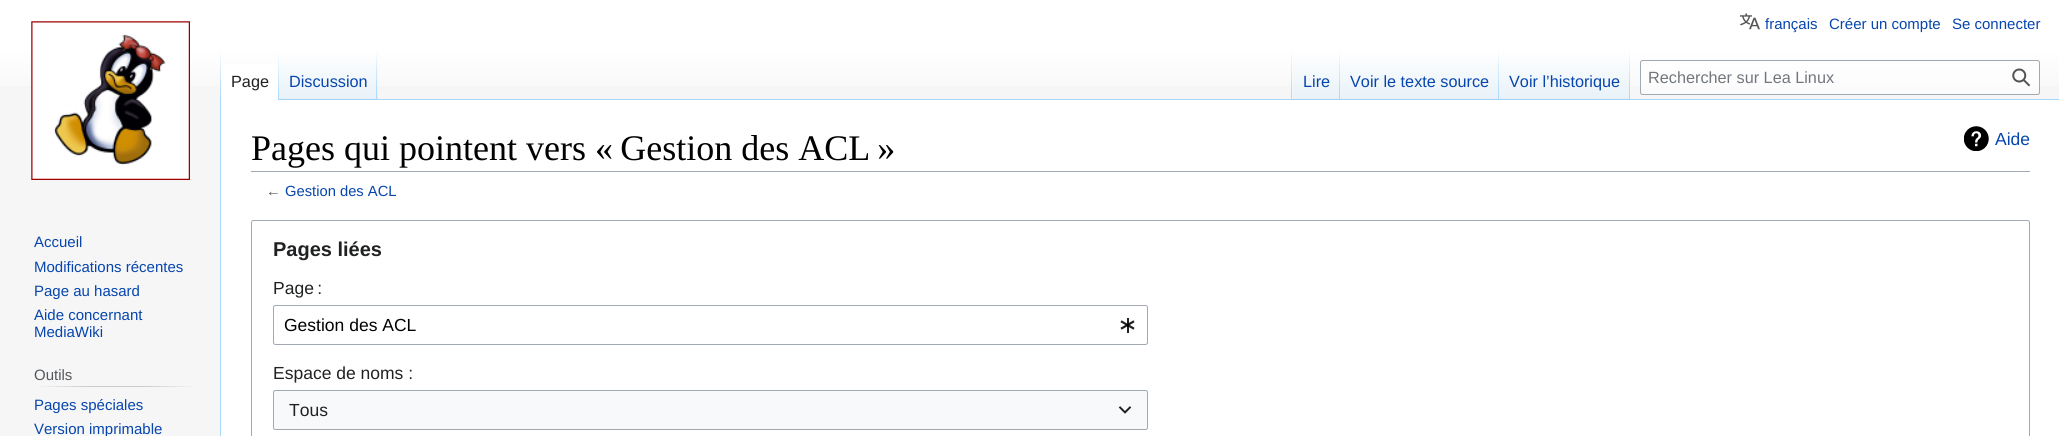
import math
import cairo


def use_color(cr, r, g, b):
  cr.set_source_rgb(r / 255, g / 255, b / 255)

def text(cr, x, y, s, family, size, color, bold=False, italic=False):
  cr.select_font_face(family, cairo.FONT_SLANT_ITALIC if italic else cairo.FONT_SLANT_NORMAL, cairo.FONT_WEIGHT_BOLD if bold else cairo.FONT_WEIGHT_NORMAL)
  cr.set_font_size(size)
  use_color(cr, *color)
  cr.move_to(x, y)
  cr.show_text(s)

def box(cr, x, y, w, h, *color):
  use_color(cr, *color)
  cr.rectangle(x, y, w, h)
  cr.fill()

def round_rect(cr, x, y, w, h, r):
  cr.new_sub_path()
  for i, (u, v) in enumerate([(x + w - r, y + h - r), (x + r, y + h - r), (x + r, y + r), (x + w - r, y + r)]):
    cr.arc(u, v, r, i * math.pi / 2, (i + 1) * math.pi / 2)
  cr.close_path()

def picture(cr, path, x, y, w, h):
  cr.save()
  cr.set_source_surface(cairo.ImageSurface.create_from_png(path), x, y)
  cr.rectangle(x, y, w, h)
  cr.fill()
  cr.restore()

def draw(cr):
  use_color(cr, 246, 246, 246)
  cr.paint()
  gradient = cairo.LinearGradient(1030, 0, 1030, 100)
  gradient.add_color_stop_rgba(0.5, 1, 1, 1, 1)
  gradient.add_color_stop_rgba(1, 0.965, 0.965, 0.965, 1)
  cr.set_source(gradient)
  cr.rectangle(0, 0, 2059, 86)
  cr.fill()
  picture(cr, "img_01.png", 1740, 13, 20, 17)
  box(cr, 220, 99, 1, 337, 167, 215, 249)
  gradient = cairo.LinearGradient(221, 50, 221, 100)
  gradient.add_color_stop_rgba(0, 0.655, 0.843, 0.976, 0)
  gradient.add_color_stop_rgba(1, 0.655, 0.843, 0.976, 1)
  cr.set_source(gradient)
  cr.rectangle(220, 50, 1, 50)
  cr.fill()
  box(cr, 221, 64, 57, 36, 255, 255, 255)
  gradient = cairo.LinearGradient(278, 50, 278, 100)
  gradient.add_color_stop_rgba(0, 1, 1, 1, 1)
  gradient.add_color_stop_rgba(1, 0.655, 0.843, 0.976, 1)
  cr.set_source(gradient)
  cr.rectangle(278, 50, 1, 50)
  cr.fill()
  gradient = cairo.LinearGradient(328, 100, 328, 50)
  gradient.add_color_stop_rgba(0, 0.467, 0.757, 0.965, 1)
  gradient.add_color_stop_rgba(0.03, 0.91, 0.949, 0.973, 1)
  gradient.add_color_stop_rgba(1, 1, 1, 1, 1)
  cr.set_source(gradient)
  cr.rectangle(279, 57, 99, 43)
  cr.fill()
  gradient = cairo.LinearGradient(377, 50, 377, 100)
  gradient.add_color_stop_rgba(0, 0.655, 0.843, 0.976, 0)
  gradient.add_color_stop_rgba(1, 0.655, 0.843, 0.976, 1)
  cr.set_source(gradient)
  cr.rectangle(376, 50, 1, 50)
  cr.fill()
  box(cr, 378, 99, 1681, 1, 167, 215, 249)
  gradient = cairo.LinearGradient(1292, 50, 1292, 100)
  gradient.add_color_stop_rgba(0, 0.655, 0.843, 0.976, 0)
  gradient.add_color_stop_rgba(1, 0.655, 0.843, 0.976, 1)
  cr.set_source(gradient)
  cr.rectangle(1291, 50, 1, 50)
  cr.fill()
  gradient = cairo.LinearGradient(1316, 100, 1316, 50)
  gradient.add_color_stop_rgba(0, 0.467, 0.757, 0.965, 1)
  gradient.add_color_stop_rgba(0.03, 0.91, 0.949, 0.973, 1)
  gradient.add_color_stop_rgba(1, 1, 1, 1, 1)
  cr.set_source(gradient)
  cr.rectangle(1293, 57, 47, 43)
  cr.fill()
  gradient = cairo.LinearGradient(1339, 50, 1339, 100)
  gradient.add_color_stop_rgba(0, 0.655, 0.843, 0.976, 0)
  gradient.add_color_stop_rgba(1, 0.655, 0.843, 0.976, 1)
  cr.set_source(gradient)
  cr.rectangle(1339, 50, 1, 50)
  cr.fill()
  gradient = cairo.LinearGradient(1419, 100, 1419, 50)
  gradient.add_color_stop_rgba(0, 0.467, 0.757, 0.965, 1)
  gradient.add_color_stop_rgba(0.03, 0.91, 0.949, 0.973, 1)
  gradient.add_color_stop_rgba(1, 1, 1, 1, 1)
  cr.set_source(gradient)
  cr.rectangle(1340, 57, 159, 43)
  cr.fill()
  gradient = cairo.LinearGradient(1498, 50, 1498, 100)
  gradient.add_color_stop_rgba(0, 0.655, 0.843, 0.976, 0)
  gradient.add_color_stop_rgba(1, 0.655, 0.843, 0.976, 1)
  cr.set_source(gradient)
  cr.rectangle(1498, 50, 1, 50)
  cr.fill()
  gradient = cairo.LinearGradient(1564, 100, 1564, 50)
  gradient.add_color_stop_rgba(0, 0.467, 0.757, 0.965, 1)
  gradient.add_color_stop_rgba(0.03, 0.91, 0.949, 0.973, 1)
  gradient.add_color_stop_rgba(1, 1, 1, 1, 1)
  cr.set_source(gradient)
  cr.rectangle(1499, 57, 131, 43)
  cr.fill()
  gradient = cairo.LinearGradient(1629, 50, 1629, 100)
  gradient.add_color_stop_rgba(0, 0.655, 0.843, 0.976, 0)
  gradient.add_color_stop_rgba(1, 0.655, 0.843, 0.976, 1)
  cr.set_source(gradient)
  cr.rectangle(1629, 50, 1, 50)
  cr.fill()
  cr.set_source_rgba(1, 1, 1, 0.5)
  round_rect(cr, 1640.5, 60.5, 399, 34, 2)
  cr.fill_preserve()
  use_color(cr, 162, 169, 177)
  cr.set_line_width(1)
  cr.stroke()
  picture(cr, "img_02.png", 2012, 68, 19, 19)
  picture(cr, "img_03.png", 31, 21, 159, 159)
  gradient = cairo.LinearGradient(34, 387, 198, 387)
  gradient.add_color_stop_rgba(0, 0.965, 0.965, 0.965, 1)
  gradient.add_color_stop_rgba(0.33, 0.784, 0.8, 0.82, 1)
  gradient.add_color_stop_rgba(0.66, 0.784, 0.8, 0.82, 1)
  gradient.add_color_stop_rgba(1, 0.965, 0.965, 0.965, 1)
  cr.set_source(gradient)
  cr.rectangle(34, 386, 164, 1)
  cr.fill()
  box(cr, 221, 100, 1838, 336, 255, 255, 255)
  box(cr, 251, 171, 1779, 1, 162, 169, 177)
  picture(cr, "img_04.png", 1964, 126, 25, 25)
  round_rect(cr, 251.5, 220.5, 1778, 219, 2)
  cr.stroke()
  round_rect(cr, 273.5, 305.5, 874, 39, 2)
  cr.stroke()
  picture(cr, "img_05.png", 1120, 318, 15, 15)
  box(cr, 273, 390, 875, 40, 248, 249, 250)
  round_rect(cr, 273.5, 390.5, 874, 39, 2)
  use_color(cr, 162, 169, 177)
  cr.stroke()
  picture(cr, "img_06.png", 1118, 406, 14, 8)
  text(cr, 1765, 29, "français", "Liberation Sans", 15, (6, 69, 173))
  text(cr, 1829, 29, "Créer un compte", "Liberation Sans", 15, (6, 69, 173))
  text(cr, 1952, 29, "Se connecter", "Liberation Sans", 15, (6, 69, 173))
  text(cr, 231, 87, "Page", "Liberation Sans", 16.25, (32, 33, 34))
  text(cr, 289, 87, "Discussion", "Liberation Sans", 16.25, (6, 69, 173))
  text(cr, 1303, 87, "Lire", "Liberation Sans", 16.25, (6, 69, 173))
  text(cr, 1350, 87, "Voir le texte source", "Liberation Sans", 16.25, (6, 69, 173))
  text(cr, 1509, 87, "Voir l’historique", "Liberation Sans", 16.25, (6, 69, 173))
  text(cr, 1648, 83, "Rechercher sur Lea Linux", "Liberation Sans", 16.25, (114, 119, 125))
  text(cr, 34, 247, "Accueil", "Liberation Sans", 15, (6, 69, 173))
  text(cr, 34, 272, "Modifications récentes", "Liberation Sans", 15, (6, 69, 173))
  text(cr, 34, 296, "Page au hasard", "Liberation Sans", 15, (6, 69, 173))
  text(cr, 34, 320, "Aide concernant", "Liberation Sans", 15, (6, 69, 173))
  text(cr, 34, 337, "MediaWiki", "Liberation Sans", 15, (6, 69, 173))
  text(cr, 34, 380, "Outils", "Liberation Sans", 15, (84, 89, 93))
  text(cr, 34, 410, "Pages spéciales", "Liberation Sans", 15, (6, 69, 173))
  text(cr, 34, 434, "Version imprimable", "Liberation Sans", 15, (6, 69, 173))
  text(cr, 251, 160, "Pages qui pointent vers « Gestion des ACL »", "Liberation Serif", 36, (0, 0, 0))
  text(cr, 1995, 145, "Aide", "Liberation Sans", 17.5, (6, 69, 173))
  text(cr, 266, 196, "←", "Liberation Sans", 14.75, (84, 89, 93))
  text(cr, 285, 196, "Gestion des ACL", "Liberation Sans", 14.75, (6, 69, 173))
  text(cr, 273, 256, "Pages liées", "Liberation Sans", 20, (32, 33, 34), bold=True)
  text(cr, 273, 294, "Page :", "Liberation Sans", 17.5, (32, 33, 34))
  text(cr, 284, 331, "Gestion des ACL", "Liberation Sans", 17.5, (0, 0, 0))
  text(cr, 273, 379, "Espace de noms :", "Liberation Sans", 17.5, (32, 33, 34))
  text(cr, 289, 416, "Tous", "Liberation Sans", 17.5, (32, 33, 34))


surface = cairo.ImageSurface(cairo.FORMAT_RGB24, 2059, 436)
cr = cairo.Context(surface)
options = cairo.FontOptions()
options.set_hint_metrics(cairo.HINT_METRICS_OFF)
options.set_hint_style(cairo.HINT_STYLE_NONE)
cr.set_font_options(options)
cr.set_miter_limit(4)
draw(cr)
surface.write_to_png("out.png")
